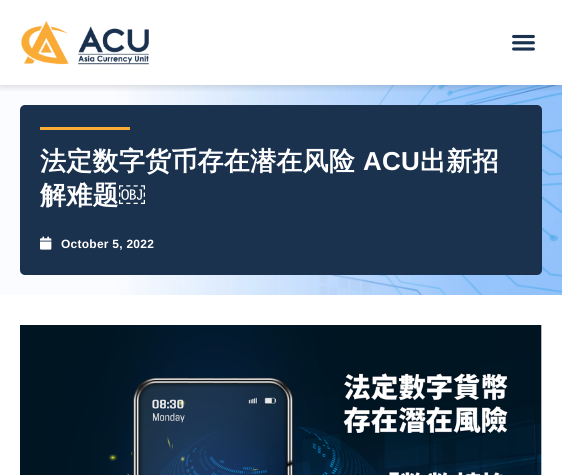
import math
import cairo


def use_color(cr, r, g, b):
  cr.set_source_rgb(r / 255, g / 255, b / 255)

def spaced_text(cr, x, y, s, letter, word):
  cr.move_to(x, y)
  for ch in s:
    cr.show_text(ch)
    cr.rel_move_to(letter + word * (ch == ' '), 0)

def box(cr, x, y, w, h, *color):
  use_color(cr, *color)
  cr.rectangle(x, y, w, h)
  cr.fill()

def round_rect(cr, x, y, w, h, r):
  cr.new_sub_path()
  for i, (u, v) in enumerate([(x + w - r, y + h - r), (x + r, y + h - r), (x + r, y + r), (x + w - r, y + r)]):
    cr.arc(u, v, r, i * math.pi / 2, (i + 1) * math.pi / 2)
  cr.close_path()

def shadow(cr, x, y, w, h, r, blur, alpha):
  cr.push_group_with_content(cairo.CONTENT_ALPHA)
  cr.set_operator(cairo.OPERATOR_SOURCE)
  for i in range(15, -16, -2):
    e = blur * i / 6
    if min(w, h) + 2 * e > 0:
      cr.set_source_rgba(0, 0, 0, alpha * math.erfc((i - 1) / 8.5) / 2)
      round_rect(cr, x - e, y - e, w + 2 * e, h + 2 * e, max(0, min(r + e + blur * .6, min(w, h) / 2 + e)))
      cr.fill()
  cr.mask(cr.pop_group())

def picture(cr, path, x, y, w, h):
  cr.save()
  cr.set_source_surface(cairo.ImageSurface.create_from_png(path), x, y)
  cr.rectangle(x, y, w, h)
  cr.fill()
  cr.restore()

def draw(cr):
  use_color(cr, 255, 255, 255)
  cr.paint()
  picture(cr, "img_03.png", 0, 85, 562, 210)
  cr.save()
  cr.rectangle(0, 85, 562, 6)
  cr.clip()
  use_color(cr, 0, 0, 0)
  shadow(cr, 0, 0, 562, 85, 0, 5, 0.2)
  cr.restore()
  picture(cr, "img_01.png", 21, 21, 128, 44)
  picture(cr, "img_02.png", 512, 34, 23, 17)
  use_color(cr, 27, 50, 79)
  round_rect(cr, 20, 105, 522, 170, 5)
  cr.fill()
  box(cr, 40, 127, 90, 3, 250, 172, 55)
  picture(cr, "img_04.png", 40, 236, 12, 14)
  picture(cr, "img_05.png", 20, 325, 522, 150)
  cr.select_font_face("WenQuanYi Zen Hei", cairo.FONT_SLANT_NORMAL, cairo.FONT_WEIGHT_BOLD)
  cr.set_font_size(26)
  use_color(cr, 255, 255, 255)
  spaced_text(cr, 40, 170, "法定数字货币存在潜在风险", 0.25, 0)
  cr.select_font_face("Liberation Sans", cairo.FONT_SLANT_NORMAL, cairo.FONT_WEIGHT_BOLD)
  spaced_text(cr, 363, 170, "ACU", 0.25, 0)
  cr.select_font_face("WenQuanYi Zen Hei", cairo.FONT_SLANT_NORMAL, cairo.FONT_WEIGHT_BOLD)
  spaced_text(cr, 420, 170, "出新招", 0.25, 0)
  spaced_text(cr, 40, 204, "解难题", 0.25, 0)
  cr.select_font_face("Liberation Sans", cairo.FONT_SLANT_NORMAL, cairo.FONT_WEIGHT_BOLD)
  spaced_text(cr, 119, 204, "￼", 0.25, 0)
  cr.set_font_size(12)
  spaced_text(cr, 61, 248, "October 5, 2022", 0.25, 0)


surface = cairo.ImageSurface(cairo.FORMAT_RGB24, 562, 475)
cr = cairo.Context(surface)
options = cairo.FontOptions()
options.set_hint_metrics(cairo.HINT_METRICS_OFF)
options.set_hint_style(cairo.HINT_STYLE_NONE)
cr.set_font_options(options)
cr.set_miter_limit(4)
draw(cr)
surface.write_to_png("out.png")
